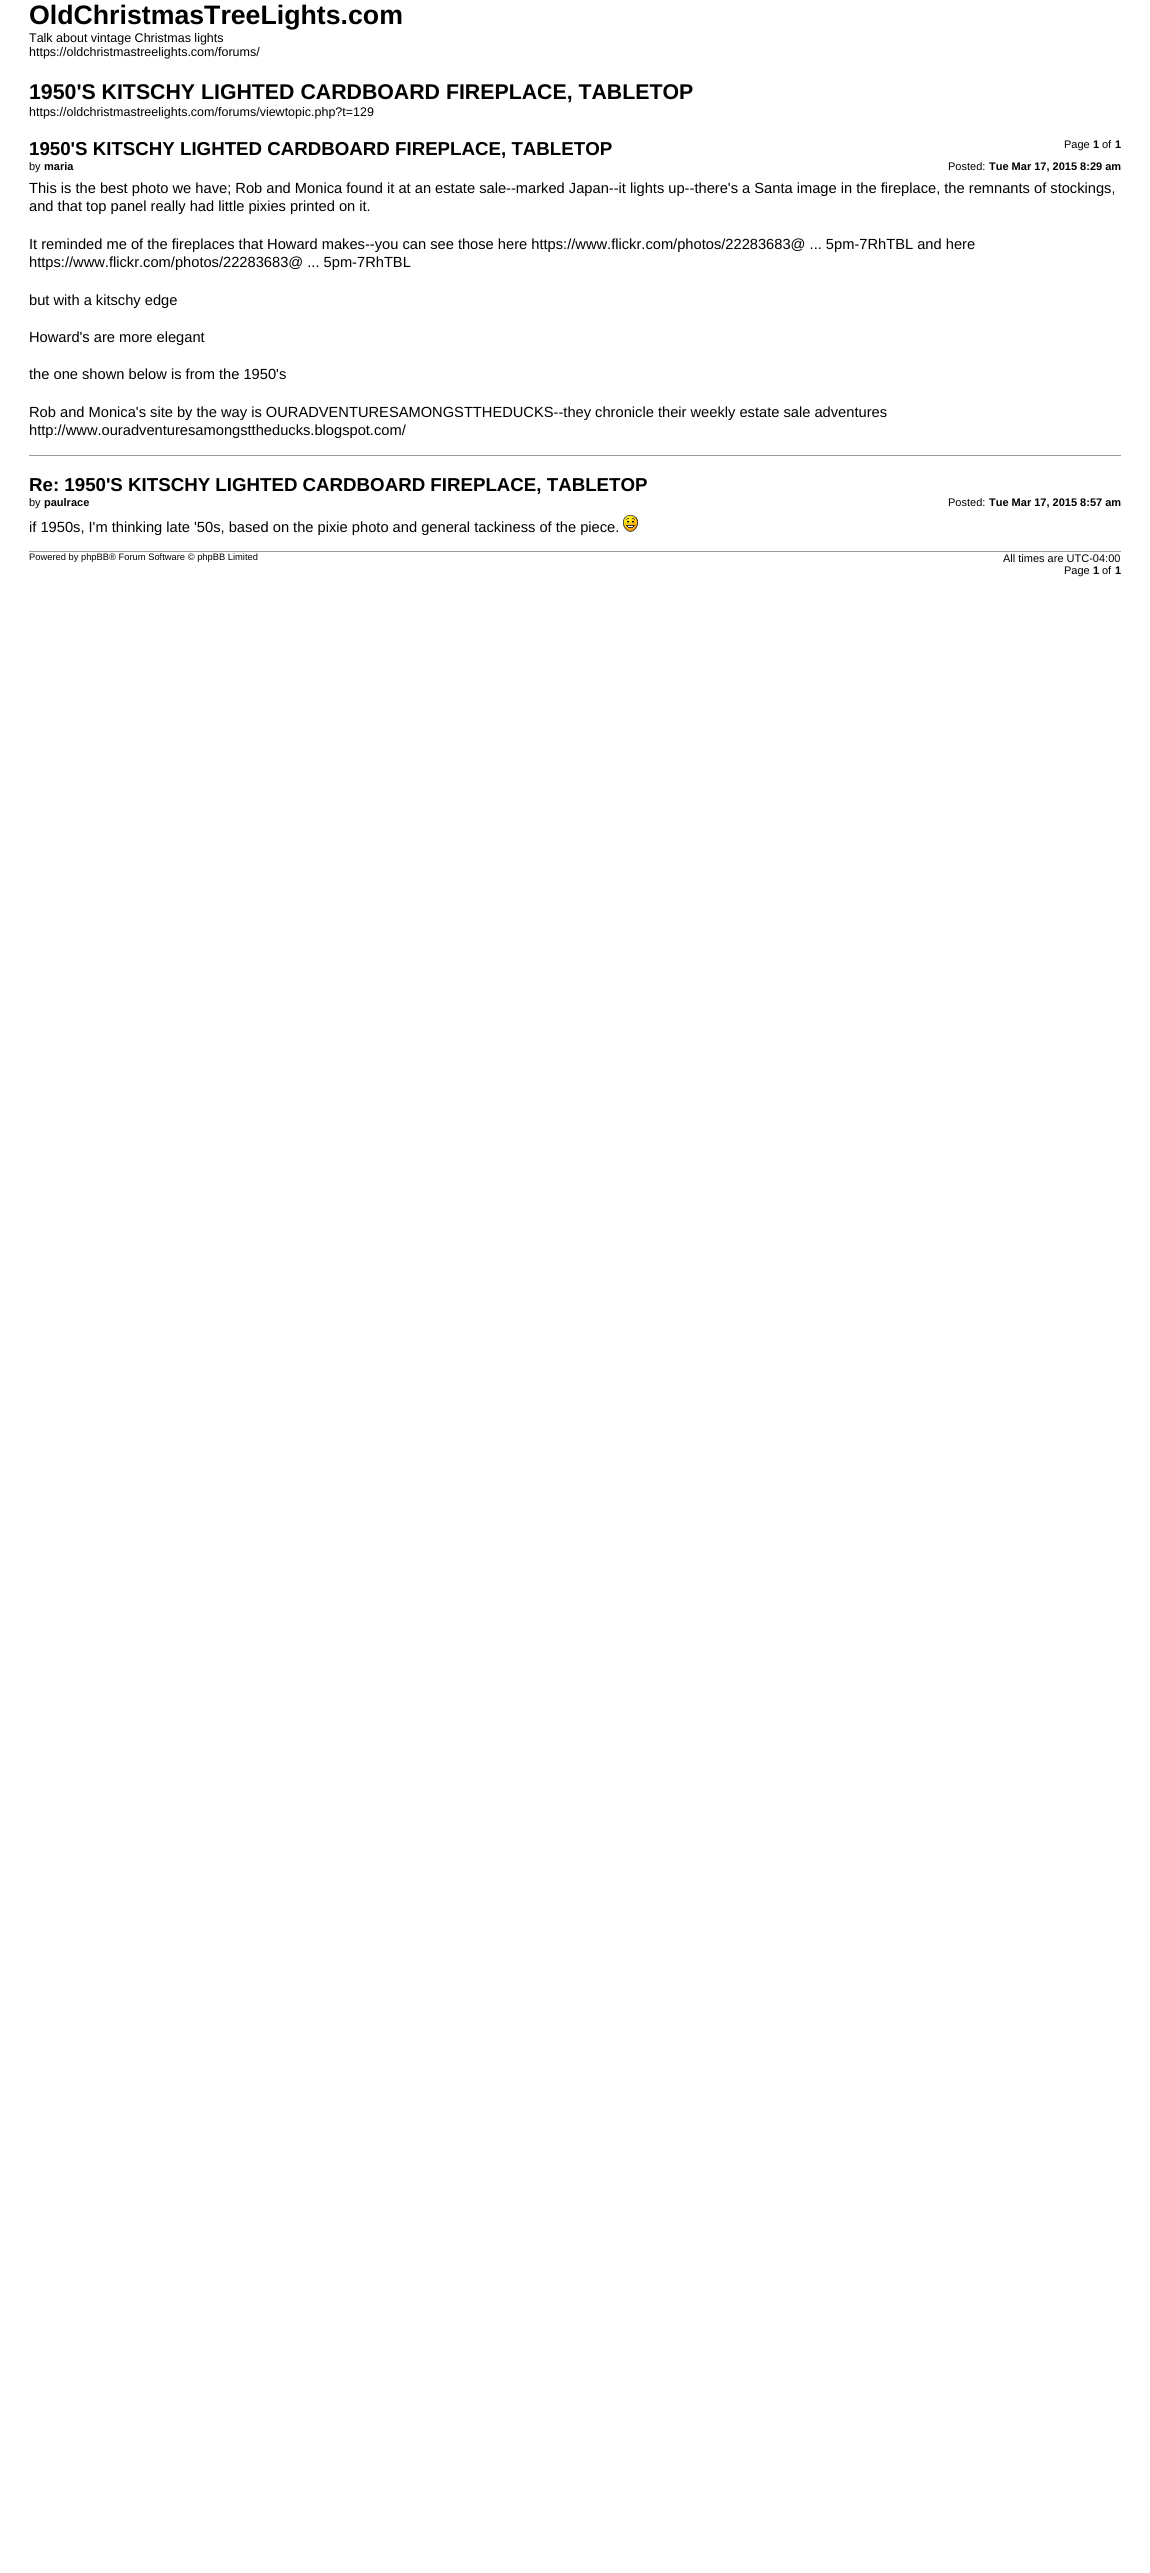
import math
import cairo


def use_color(cr, r, g, b):
  cr.set_source_rgb(r / 255, g / 255, b / 255)

def text(cr, x, y, s, family, size, color, bold=False, italic=False):
  cr.select_font_face(family, cairo.FONT_SLANT_ITALIC if italic else cairo.FONT_SLANT_NORMAL, cairo.FONT_WEIGHT_BOLD if bold else cairo.FONT_WEIGHT_NORMAL)
  cr.set_font_size(size)
  use_color(cr, *color)
  cr.move_to(x, y)
  cr.show_text(s)

def box(cr, x, y, w, h, *color):
  use_color(cr, *color)
  cr.rectangle(x, y, w, h)
  cr.fill()

def picture(cr, path, x, y, w, h):
  cr.save()
  cr.set_source_surface(cairo.ImageSurface.create_from_png(path), x, y)
  cr.rectangle(x, y, w, h)
  cr.fill()
  cr.restore()

def draw(cr):
  use_color(cr, 255, 255, 255)
  cr.paint()
  box(cr, 29, 455, 1092, 1, 153, 153, 153)
  picture(cr, "img_01.png", 623, 515, 15, 17)
  box(cr, 29, 551, 1092, 1, 153, 153, 153)
  text(cr, 29, 24, "OldChristmasTreeLights.com", "Liberation Sans", 26.7, (0, 0, 0), bold=True)
  text(cr, 29, 42, "Talk about vintage Christmas lights", "Liberation Sans", 12.5, (0, 0, 0))
  text(cr, 29, 56, "https://oldchristmastreelights.com/forums/", "Liberation Sans", 12.5, (0, 0, 0))
  text(cr, 29, 99, "1950'S KITSCHY LIGHTED CARDBOARD FIREPLACE, TABLETOP", "Liberation Sans", 21.3, (0, 0, 0), bold=True)
  text(cr, 29, 116, "https://oldchristmastreelights.com/forums/viewtopic.php?t=129", "Liberation Sans", 12.5, (0, 0, 0))
  text(cr, 1064, 148, "Page", "Liberation Sans", 11, (0, 0, 0))
  text(cr, 1093, 148, "1", "Liberation Sans", 11, (0, 0, 0), bold=True)
  text(cr, 1102, 148, "of", "Liberation Sans", 11, (0, 0, 0))
  text(cr, 1115, 148, "1", "Liberation Sans", 11, (0, 0, 0), bold=True)
  text(cr, 29, 155, "1950'S KITSCHY LIGHTED CARDBOARD FIREPLACE, TABLETOP", "Liberation Sans", 18.7, (0, 0, 0), bold=True)
  text(cr, 29, 170, "by", "Liberation Sans", 11, (0, 0, 0))
  text(cr, 44, 170, "maria", "Liberation Sans", 11, (0, 0, 0), bold=True)
  text(cr, 948, 170, "Posted:", "Liberation Sans", 11, (0, 0, 0))
  text(cr, 989, 170, "Tue Mar 17, 2015 8:29 am", "Liberation Sans", 11, (0, 0, 0), bold=True)
  text(cr, 29, 193, "This is the best photo we have; Rob and Monica found it at an estate sale--marked Japan--it lights up--there's a Santa image in the fireplace, the remnants of stockings,", "Liberation Sans", 14.67, (0, 0, 0))
  text(cr, 29, 211, "and that top panel really had little pixies printed on it.", "Liberation Sans", 14.67, (0, 0, 0))
  text(cr, 29, 249, "It reminded me of the fireplaces that Howard makes--you can see those here https://www.flickr.com/photos/22283683@ ... 5pm-7RhTBL and here", "Liberation Sans", 14.67, (0, 0, 0))
  text(cr, 29, 267, "https://www.flickr.com/photos/22283683@ ... 5pm-7RhTBL", "Liberation Sans", 14.67, (0, 0, 0))
  text(cr, 29, 305, "but with a kitschy edge", "Liberation Sans", 14.67, (0, 0, 0))
  text(cr, 29, 342, "Howard's are more elegant", "Liberation Sans", 14.67, (0, 0, 0))
  text(cr, 29, 379, "the one shown below is from the 1950's", "Liberation Sans", 14.67, (0, 0, 0))
  text(cr, 29, 417, "Rob and Monica's site by the way is OURADVENTURESAMONGSTTHEDUCKS--they chronicle their weekly estate sale adventures", "Liberation Sans", 14.67, (0, 0, 0))
  text(cr, 29, 435, "http://www.ouradventuresamongsttheducks.blogspot.com/", "Liberation Sans", 14.67, (0, 0, 0))
  text(cr, 29, 491, "Re: 1950'S KITSCHY LIGHTED CARDBOARD FIREPLACE, TABLETOP", "Liberation Sans", 18.7, (0, 0, 0), bold=True)
  text(cr, 29, 506, "by", "Liberation Sans", 11, (0, 0, 0))
  text(cr, 44, 506, "paulrace", "Liberation Sans", 11, (0, 0, 0), bold=True)
  text(cr, 948, 506, "Posted:", "Liberation Sans", 11, (0, 0, 0))
  text(cr, 989, 506, "Tue Mar 17, 2015 8:57 am", "Liberation Sans", 11, (0, 0, 0), bold=True)
  text(cr, 29, 532, "if 1950s, I'm thinking late '50s, based on the pixie photo and general tackiness of the piece.", "Liberation Sans", 14.67, (0, 0, 0))
  text(cr, 29, 560, "Powered by phpBB® Forum Software © phpBB Limited", "Liberation Sans", 9.35, (0, 0, 0))
  text(cr, 1003, 562, "All times are UTC-04:00", "Liberation Sans", 11, (0, 0, 0))
  text(cr, 1064, 574, "Page", "Liberation Sans", 11, (0, 0, 0))
  text(cr, 1093, 574, "1", "Liberation Sans", 11, (0, 0, 0), bold=True)
  text(cr, 1102, 574, "of", "Liberation Sans", 11, (0, 0, 0))
  text(cr, 1115, 574, "1", "Liberation Sans", 11, (0, 0, 0), bold=True)


surface = cairo.ImageSurface(cairo.FORMAT_RGB24, 1150, 2573)
cr = cairo.Context(surface)
options = cairo.FontOptions()
options.set_hint_metrics(cairo.HINT_METRICS_OFF)
options.set_hint_style(cairo.HINT_STYLE_NONE)
cr.set_font_options(options)
cr.set_miter_limit(4)
draw(cr)
surface.write_to_png("out.png")
